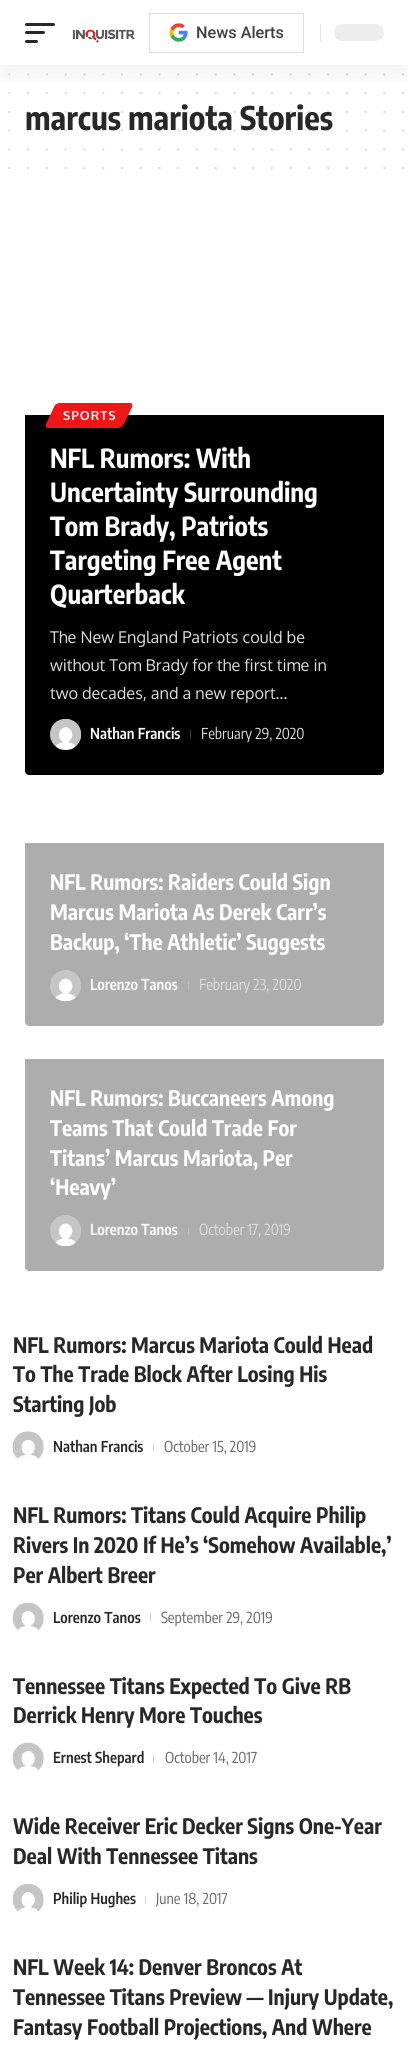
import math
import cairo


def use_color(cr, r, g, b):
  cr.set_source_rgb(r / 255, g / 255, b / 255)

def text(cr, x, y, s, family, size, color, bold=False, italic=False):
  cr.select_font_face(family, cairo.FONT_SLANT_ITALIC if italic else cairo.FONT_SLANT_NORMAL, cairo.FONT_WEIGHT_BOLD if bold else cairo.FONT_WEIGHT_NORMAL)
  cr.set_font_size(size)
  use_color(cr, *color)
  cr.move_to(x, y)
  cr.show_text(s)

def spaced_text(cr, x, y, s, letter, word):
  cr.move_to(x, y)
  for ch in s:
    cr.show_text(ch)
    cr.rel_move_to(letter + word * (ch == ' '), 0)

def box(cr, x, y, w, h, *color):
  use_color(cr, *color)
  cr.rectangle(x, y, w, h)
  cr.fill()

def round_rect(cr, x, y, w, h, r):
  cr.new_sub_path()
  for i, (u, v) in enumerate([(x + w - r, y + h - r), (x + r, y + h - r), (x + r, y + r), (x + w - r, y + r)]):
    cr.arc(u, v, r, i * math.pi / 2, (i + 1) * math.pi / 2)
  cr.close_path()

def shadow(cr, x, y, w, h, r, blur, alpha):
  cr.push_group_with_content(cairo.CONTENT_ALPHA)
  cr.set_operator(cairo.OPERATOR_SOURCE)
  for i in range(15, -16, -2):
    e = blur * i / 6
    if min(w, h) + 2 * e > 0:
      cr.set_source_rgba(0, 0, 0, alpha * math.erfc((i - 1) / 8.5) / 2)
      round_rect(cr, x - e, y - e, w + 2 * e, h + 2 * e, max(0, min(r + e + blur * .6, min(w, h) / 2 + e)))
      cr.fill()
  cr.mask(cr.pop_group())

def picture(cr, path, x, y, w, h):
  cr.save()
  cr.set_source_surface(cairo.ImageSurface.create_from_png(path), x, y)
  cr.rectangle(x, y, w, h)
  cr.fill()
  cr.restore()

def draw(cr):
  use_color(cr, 255, 255, 255)
  cr.paint()
  cr.new_path()
  cr.move_to(9.4, 74.4)
  cr.line_to(403.4, 74.4)
  use_color(cr, 223, 223, 223)
  cr.set_line_width(2.5)
  cr.set_line_cap(cairo.LINE_CAP_ROUND)
  cr.set_dash([0, 18.75])
  cr.stroke()
  cr.new_path()
  cr.move_to(9.4, 93.1)
  cr.line_to(403.4, 93.1)
  cr.stroke()
  cr.new_path()
  cr.move_to(9.4, 149.4)
  cr.line_to(403.4, 149.4)
  cr.stroke()
  cr.new_path()
  cr.move_to(9.4, 168.1)
  cr.line_to(403.4, 168.1)
  cr.stroke()
  use_color(cr, 0, 0, 0)
  cr.new_path()
  cr.move_to(25, 415)
  cr.line_to(384, 415)
  cr.line_to(384, 771)
  cr.curve_to(384, 773, 382, 775, 380, 775)
  cr.line_to(29, 775)
  cr.curve_to(27, 775, 25, 773, 25, 771)
  cr.close_path()
  cr.fill()
  use_color(cr, 239, 22, 21)
  cr.new_path()
  cr.move_to(60, 403)
  cr.line_to(130, 403)
  cr.curve_to(132, 403, 133, 404, 132, 407)
  cr.line_to(124, 424)
  cr.curve_to(123, 426, 120, 428, 118, 428)
  cr.line_to(48, 428)
  cr.curve_to(46, 428, 45, 426, 46, 424)
  cr.line_to(54, 407)
  cr.curve_to(55, 404, 58, 403, 60, 403)
  cr.close_path()
  cr.fill()
  picture(cr, "img_03.png", 50, 718, 32, 32)
  box(cr, 190, 730, 1, 8, 66, 66, 66)
  use_color(cr, 173, 173, 173)
  cr.new_path()
  cr.move_to(25, 843)
  cr.line_to(384, 843)
  cr.line_to(384, 1022)
  cr.curve_to(384, 1024, 382, 1026, 380, 1026)
  cr.line_to(29, 1026)
  cr.curve_to(27, 1026, 25, 1024, 25, 1022)
  cr.close_path()
  cr.fill()
  picture(cr, "img_04.png", 50, 970, 31, 32)
  box(cr, 188, 981, 1, 8, 187, 187, 187)
  use_color(cr, 173, 173, 173)
  cr.new_path()
  cr.move_to(25, 1059)
  cr.line_to(384, 1059)
  cr.line_to(384, 1267)
  cr.curve_to(384, 1269, 382, 1271, 380, 1271)
  cr.line_to(29, 1271)
  cr.curve_to(27, 1271, 25, 1269, 25, 1267)
  cr.close_path()
  cr.fill()
  picture(cr, "img_04.png", 50, 1215, 31, 32)
  box(cr, 188, 1228, 1, 7, 187, 187, 187)
  picture(cr, "img_05.png", 12, 1431, 32, 28)
  box(cr, 153, 1444, 1, 7, 209, 209, 209)
  picture(cr, "img_06.png", 12, 1602, 32, 28)
  box(cr, 150, 1614, 1, 7, 209, 209, 209)
  picture(cr, "img_06.png", 12, 1742, 32, 28)
  box(cr, 153, 1755, 1, 8, 209, 209, 209)
  picture(cr, "img_07.png", 12, 1884, 32, 28)
  box(cr, 145, 1896, 1, 8, 209, 209, 209)
  text(cr, 25, 130, "marcus mariota Stories", "Encode Sans Condensed", 32.5, (40, 40, 40), bold=True)
  cr.new_path()
  cr.move_to(9.4, 111.9)
  cr.line_to(403.4, 111.9)
  cr.set_source_rgba(0.157, 0.157, 0.157, 0.15)
  cr.stroke()
  cr.save()
  cr.rectangle(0, 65, 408, 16)
  cr.clip()
  use_color(cr, 0, 0, 0)
  shadow(cr, 0, 5, 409, 65, 0, 19, 0.07)
  cr.restore()
  use_color(cr, 237, 237, 237)
  round_rect(cr, 334, 24, 50, 17, 8.5)
  cr.fill()
  box(cr, 320, 24, 1, 17, 228, 228, 228)
  cr.rectangle(149.5, 13.5, 154, 39)
  use_color(cr, 218, 220, 224)
  cr.set_line_width(1)
  cr.set_line_cap(cairo.LINE_CAP_BUTT)
  cr.set_dash([])
  cr.stroke()
  picture(cr, "img_02.png", 169, 23, 19, 19)
  text(cr, 196, 38, "News Alerts", "Roboto Medium", 16.25, (60, 64, 67))
  use_color(cr, 40, 40, 40)
  round_rect(cr, 25, 40, 13, 3, 1.5)
  cr.fill()
  round_rect(cr, 25, 31, 20, 3, 1.5)
  cr.fill()
  round_rect(cr, 25, 23, 30, 3, 1.5)
  cr.fill()
  picture(cr, "img_01.png", 72, 29, 63, 14)
  cr.new_path()
  cr.move_to(9.4, 130.6)
  cr.line_to(403.4, 130.6)
  cr.set_source_rgba(0.157, 0.157, 0.157, 0.15)
  cr.set_line_width(2.5)
  cr.set_line_cap(cairo.LINE_CAP_ROUND)
  cr.set_dash([0, 18.75])
  cr.stroke()
  cr.select_font_face("Oxygen", cairo.FONT_SLANT_NORMAL, cairo.FONT_WEIGHT_BOLD)
  cr.set_font_size(12.5)
  use_color(cr, 255, 255, 255)
  spaced_text(cr, 63, 420, "SPORTS", 1, 0)
  text(cr, 50, 468, "NFL Rumors: With", "Encode Sans Condensed", 26.25, (255, 255, 255), bold=True)
  text(cr, 50, 502, "Uncertainty Surrounding", "Encode Sans Condensed", 26.25, (255, 255, 255), bold=True)
  text(cr, 50, 536, "Tom Brady, Patriots", "Encode Sans Condensed", 26.25, (255, 255, 255), bold=True)
  text(cr, 50, 570, "Targeting Free Agent", "Encode Sans Condensed", 26.25, (255, 255, 255), bold=True)
  text(cr, 50, 604, "Quarterback", "Encode Sans Condensed", 26.25, (255, 255, 255), bold=True)
  text(cr, 50, 643, "The New England Patriots could be", "Oxygen", 16.25, (221, 221, 221))
  text(cr, 50, 671, "without Tom Brady for the first time in", "Oxygen", 16.25, (221, 221, 221))
  text(cr, 50, 699, "two decades, and a new report…", "Oxygen", 16.25, (221, 221, 221))
  text(cr, 90, 739, "Nathan Francis", "Encode Sans Condensed SemiBold", 15, (255, 255, 255))
  text(cr, 201, 739, "February 29, 2020", "Encode Sans Condensed", 15, (221, 221, 221))
  text(cr, 50, 890, "NFL Rumors: Raiders Could Sign", "Encode Sans Condensed", 21.25, (255, 255, 255), bold=True)
  text(cr, 50, 920, "Marcus Mariota As Derek Carr’s", "Encode Sans Condensed", 21.25, (255, 255, 255), bold=True)
  text(cr, 50, 950, "Backup, ‘The Athletic’ Suggests", "Encode Sans Condensed", 21.25, (255, 255, 255), bold=True)
  text(cr, 90, 990, "Lorenzo Tanos", "Encode Sans Condensed SemiBold", 15, (255, 255, 255))
  text(cr, 199, 990, "February 23, 2020", "Encode Sans Condensed", 15, (221, 221, 221))
  text(cr, 50, 1106, "NFL Rumors: Buccaneers Among", "Encode Sans Condensed", 21.25, (255, 255, 255), bold=True)
  text(cr, 50, 1136, "Teams That Could Trade For", "Encode Sans Condensed", 21.25, (255, 255, 255), bold=True)
  text(cr, 50, 1166, "Titans’ Marcus Mariota, Per", "Encode Sans Condensed", 21.25, (255, 255, 255), bold=True)
  text(cr, 50, 1195, "‘Heavy’", "Encode Sans Condensed", 21.25, (255, 255, 255), bold=True)
  text(cr, 90, 1235, "Lorenzo Tanos", "Encode Sans Condensed SemiBold", 15, (255, 255, 255))
  text(cr, 199, 1235, "October 17, 2019", "Encode Sans Condensed", 15, (221, 221, 221))
  text(cr, 13, 1353, "NFL Rumors: Marcus Mariota Could Head", "Encode Sans Condensed", 21.25, (40, 40, 40), bold=True)
  text(cr, 13, 1382, "To The Trade Block After Losing His", "Encode Sans Condensed", 21.25, (40, 40, 40), bold=True)
  text(cr, 13, 1412, "Starting Job", "Encode Sans Condensed", 21.25, (40, 40, 40), bold=True)
  text(cr, 53, 1452, "Nathan Francis", "Encode Sans Condensed SemiBold", 15, (40, 40, 40))
  text(cr, 164, 1452, "October 15, 2019", "Encode Sans Condensed", 15, (102, 102, 102))
  text(cr, 13, 1523, "NFL Rumors: Titans Could Acquire Philip", "Encode Sans Condensed", 21.25, (40, 40, 40), bold=True)
  text(cr, 13, 1553, "Rivers In 2020 If He’s ‘Somehow Available,’", "Encode Sans Condensed", 21.25, (40, 40, 40), bold=True)
  text(cr, 13, 1583, "Per Albert Breer", "Encode Sans Condensed", 21.25, (40, 40, 40), bold=True)
  text(cr, 53, 1623, "Lorenzo Tanos", "Encode Sans Condensed SemiBold", 15, (40, 40, 40))
  text(cr, 161, 1623, "September 29, 2019", "Encode Sans Condensed", 15, (102, 102, 102))
  text(cr, 13, 1694, "Tennessee Titans Expected To Give RB", "Encode Sans Condensed", 21.25, (40, 40, 40), bold=True)
  text(cr, 13, 1723, "Derrick Henry More Touches", "Encode Sans Condensed", 21.25, (40, 40, 40), bold=True)
  text(cr, 53, 1763, "Ernest Shepard", "Encode Sans Condensed SemiBold", 15, (40, 40, 40))
  text(cr, 165, 1763, "October 14, 2017", "Encode Sans Condensed", 15, (102, 102, 102))
  text(cr, 13, 1834, "Wide Receiver Eric Decker Signs One-Year", "Encode Sans Condensed", 21.25, (40, 40, 40), bold=True)
  text(cr, 13, 1864, "Deal With Tennessee Titans", "Encode Sans Condensed", 21.25, (40, 40, 40), bold=True)
  text(cr, 53, 1904, "Philip Hughes", "Encode Sans Condensed SemiBold", 15, (40, 40, 40))
  text(cr, 156, 1904, "June 18, 2017", "Encode Sans Condensed", 15, (102, 102, 102))
  text(cr, 13, 1975, "NFL Week 14: Denver Broncos At", "Encode Sans Condensed", 21.25, (40, 40, 40), bold=True)
  text(cr, 13, 2005, "Tennessee Titans Preview — Injury Update,", "Encode Sans Condensed", 21.25, (40, 40, 40), bold=True)
  text(cr, 13, 2035, "Fantasy Football Projections, And Where", "Encode Sans Condensed", 21.25, (40, 40, 40), bold=True)


surface = cairo.ImageSurface(cairo.FORMAT_RGB24, 408, 2053)
cr = cairo.Context(surface)
options = cairo.FontOptions()
options.set_hint_metrics(cairo.HINT_METRICS_OFF)
options.set_hint_style(cairo.HINT_STYLE_NONE)
cr.set_font_options(options)
cr.set_miter_limit(4)
draw(cr)
surface.write_to_png("out.png")
